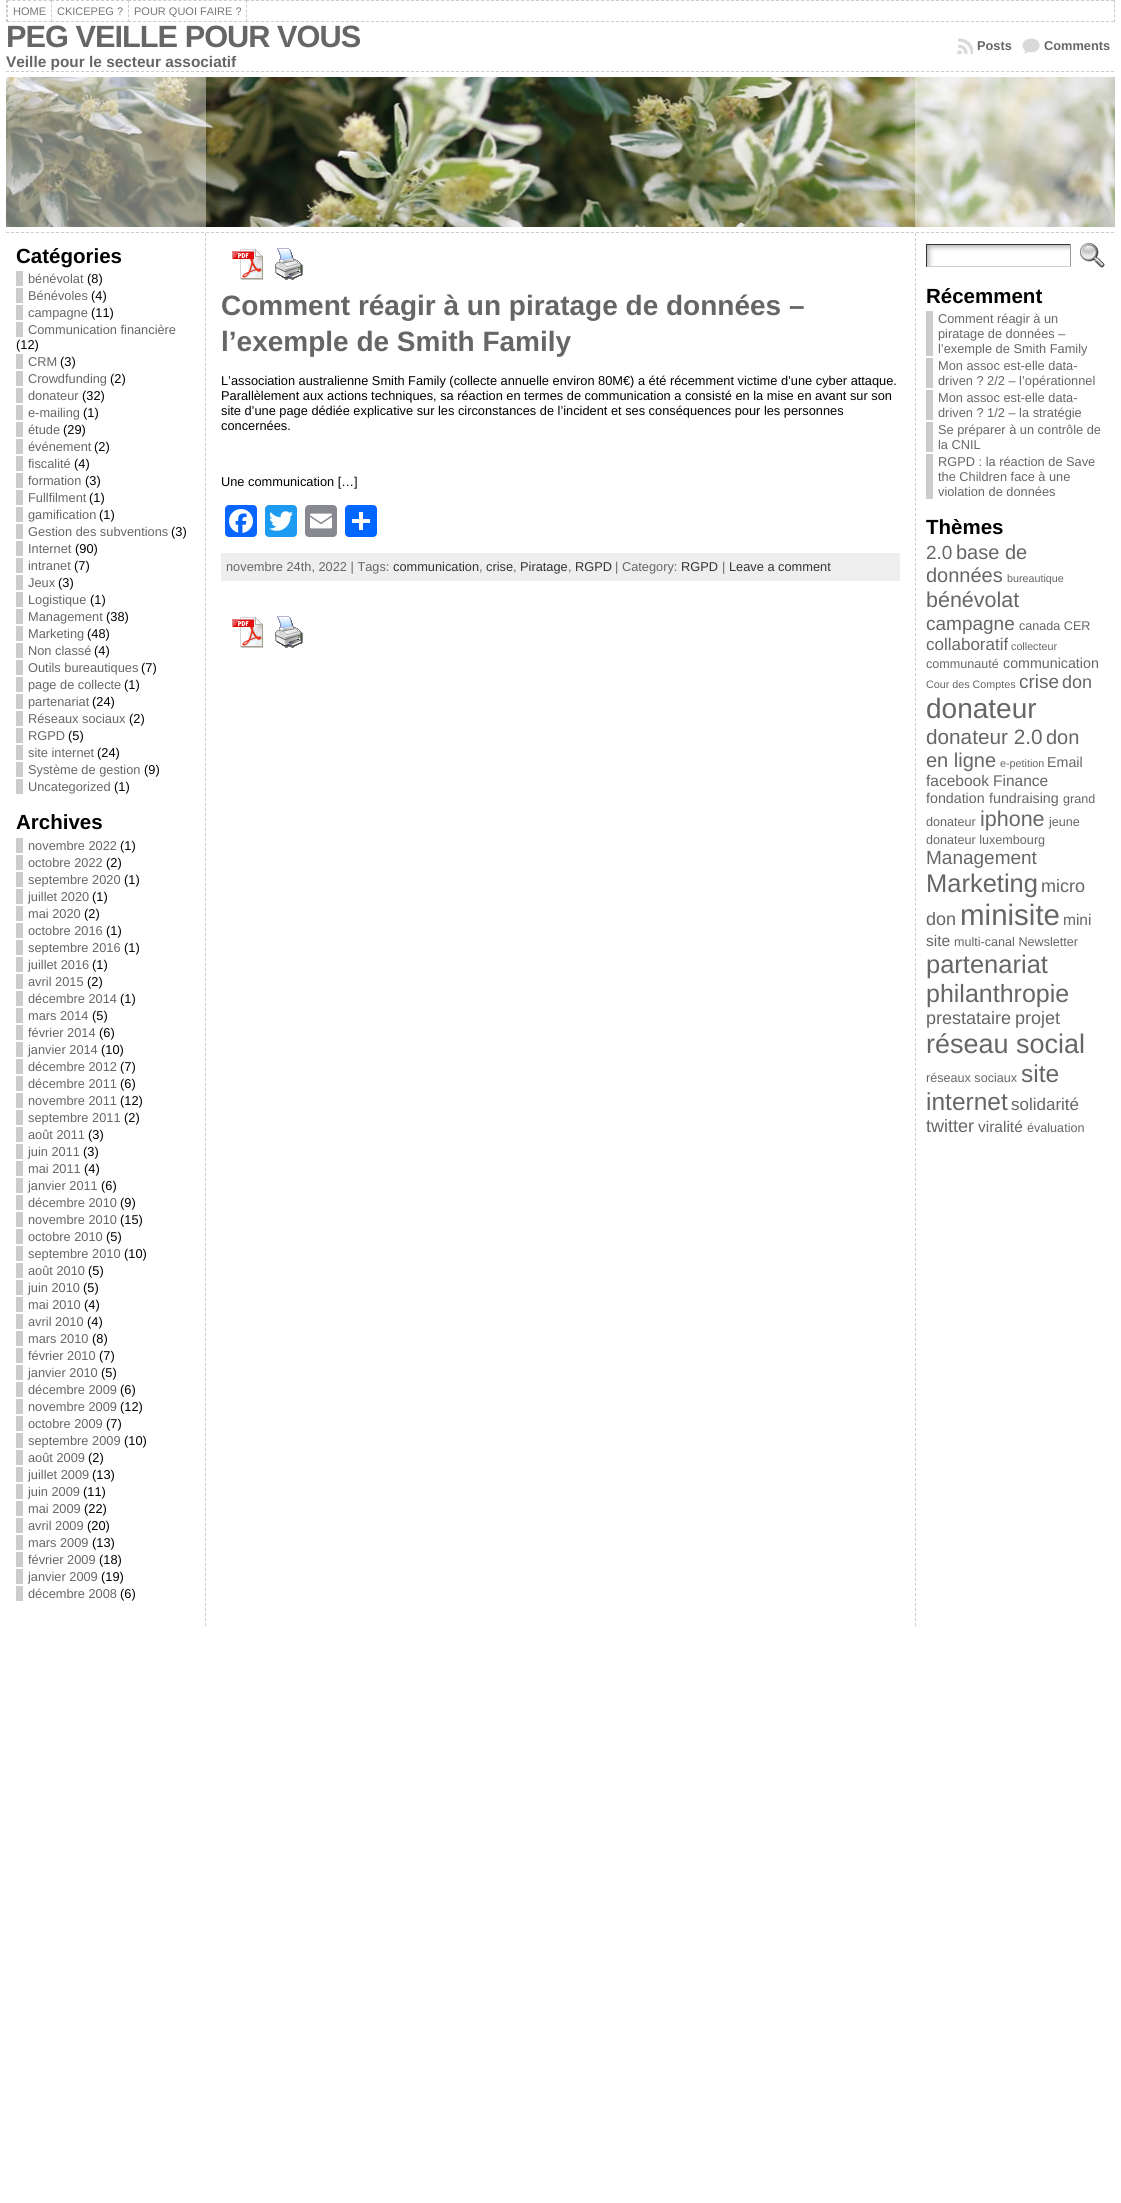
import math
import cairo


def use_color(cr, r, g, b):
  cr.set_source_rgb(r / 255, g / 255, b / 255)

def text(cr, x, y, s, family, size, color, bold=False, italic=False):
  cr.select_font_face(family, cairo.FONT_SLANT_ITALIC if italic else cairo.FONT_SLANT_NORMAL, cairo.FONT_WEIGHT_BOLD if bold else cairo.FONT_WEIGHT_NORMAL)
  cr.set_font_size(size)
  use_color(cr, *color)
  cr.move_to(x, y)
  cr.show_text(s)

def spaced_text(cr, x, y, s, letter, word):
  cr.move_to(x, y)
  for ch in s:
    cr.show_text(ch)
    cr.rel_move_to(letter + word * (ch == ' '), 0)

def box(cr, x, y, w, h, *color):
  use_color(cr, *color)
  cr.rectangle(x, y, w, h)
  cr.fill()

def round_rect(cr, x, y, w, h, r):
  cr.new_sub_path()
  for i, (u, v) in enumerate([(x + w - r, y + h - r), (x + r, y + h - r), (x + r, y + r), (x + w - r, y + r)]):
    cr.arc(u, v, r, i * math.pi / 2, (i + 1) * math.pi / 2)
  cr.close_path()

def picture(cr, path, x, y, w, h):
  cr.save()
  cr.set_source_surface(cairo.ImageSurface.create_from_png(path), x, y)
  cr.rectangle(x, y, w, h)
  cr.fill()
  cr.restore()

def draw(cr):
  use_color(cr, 255, 255, 255)
  cr.paint()
  cr.new_path()
  cr.move_to(6, 0.5)
  cr.line_to(1115, 0.5)
  use_color(cr, 204, 204, 204)
  cr.set_line_width(1)
  cr.set_dash([3, 2])
  cr.stroke()
  cr.new_path()
  cr.move_to(1114.5, 0)
  cr.line_to(1114.5, 22)
  cr.set_dash([3, 1.75])
  cr.stroke()
  cr.new_path()
  cr.move_to(6, 21.5)
  cr.line_to(1115, 21.5)
  cr.set_dash([3, 2])
  cr.stroke()
  cr.new_path()
  cr.move_to(6.5, 0)
  cr.line_to(6.5, 22)
  cr.set_dash([3, 1.75])
  cr.stroke()
  box(cr, 7, 0, 42, 22, 255, 255, 255)
  cr.new_path()
  cr.move_to(7, 0.5)
  cr.line_to(52, 0.5)
  cr.move_to(7, 21.5)
  cr.line_to(52, 21.5)
  use_color(cr, 204, 204, 204)
  cr.set_dash([3, 2.25])
  cr.stroke()
  cr.new_path()
  cr.move_to(7.5, 0)
  cr.line_to(7.5, 22)
  cr.set_dash([3, 1.75])
  cr.stroke()
  box(cr, 51, 0, 77, 22, 255, 255, 255)
  cr.new_path()
  cr.move_to(51, 0.5)
  cr.line_to(129, 0.5)
  use_color(cr, 204, 204, 204)
  cr.set_dash([3, 2])
  cr.stroke()
  cr.new_path()
  cr.move_to(51, 21.5)
  cr.line_to(129, 21.5)
  cr.stroke()
  cr.new_path()
  cr.move_to(51.5, 0)
  cr.line_to(51.5, 22)
  cr.set_dash([3, 1.75])
  cr.stroke()
  box(cr, 128, 0, 119, 22, 255, 255, 255)
  cr.new_path()
  cr.move_to(128, 0.5)
  cr.line_to(247, 0.5)
  use_color(cr, 204, 204, 204)
  cr.set_dash([3, 2.04])
  cr.stroke()
  cr.new_path()
  cr.move_to(246.5, 0)
  cr.line_to(246.5, 22)
  cr.set_dash([3, 1.75])
  cr.stroke()
  cr.new_path()
  cr.move_to(128, 21.5)
  cr.line_to(247, 21.5)
  cr.set_dash([3, 2.04])
  cr.stroke()
  cr.new_path()
  cr.move_to(128.5, 0)
  cr.line_to(128.5, 22)
  cr.set_dash([3, 1.75])
  cr.stroke()
  picture(cr, "img_01.png", 957, 38, 16, 16)
  picture(cr, "img_02.png", 1022, 38, 18, 16)
  cr.new_path()
  cr.move_to(6, 71.5)
  cr.line_to(1115, 71.5)
  cr.set_dash([3, 2])
  cr.stroke()
  picture(cr, "img_03.png", 6, 77, 1109, 150)
  cr.set_source_rgba(1, 1, 1, 0.4)
  cr.rectangle(6, 77, 200, 150)
  cr.fill()
  cr.rectangle(915, 77, 200, 150)
  cr.fill()
  cr.new_path()
  cr.move_to(6, 232.5)
  cr.line_to(1115, 232.5)
  use_color(cr, 204, 204, 204)
  cr.stroke()
  cr.new_path()
  cr.move_to(205.5, 233)
  cr.line_to(205.5, 1626)
  cr.stroke()
  box(cr, 16, 271, 7, 15, 204, 204, 204)
  box(cr, 16, 288, 7, 15, 204, 204, 204)
  box(cr, 16, 305, 7, 15, 204, 204, 204)
  box(cr, 16, 322, 7, 15, 204, 204, 204)
  box(cr, 16, 354, 7, 15, 204, 204, 204)
  box(cr, 16, 371, 7, 15, 204, 204, 204)
  box(cr, 16, 388, 7, 15, 204, 204, 204)
  box(cr, 16, 405, 7, 15, 204, 204, 204)
  box(cr, 16, 422, 7, 15, 204, 204, 204)
  box(cr, 16, 439, 7, 15, 204, 204, 204)
  box(cr, 16, 456, 7, 15, 204, 204, 204)
  box(cr, 16, 473, 7, 15, 204, 204, 204)
  box(cr, 16, 490, 7, 15, 204, 204, 204)
  box(cr, 16, 507, 7, 15, 204, 204, 204)
  box(cr, 16, 524, 7, 15, 204, 204, 204)
  box(cr, 16, 541, 7, 15, 204, 204, 204)
  box(cr, 16, 558, 7, 15, 204, 204, 204)
  box(cr, 16, 575, 7, 15, 204, 204, 204)
  box(cr, 16, 592, 7, 15, 204, 204, 204)
  box(cr, 16, 609, 7, 15, 204, 204, 204)
  box(cr, 16, 626, 7, 15, 204, 204, 204)
  box(cr, 16, 643, 7, 15, 204, 204, 204)
  box(cr, 16, 660, 7, 15, 204, 204, 204)
  box(cr, 16, 677, 7, 15, 204, 204, 204)
  box(cr, 16, 694, 7, 15, 204, 204, 204)
  box(cr, 16, 711, 7, 15, 204, 204, 204)
  box(cr, 16, 728, 7, 15, 204, 204, 204)
  box(cr, 16, 745, 7, 15, 204, 204, 204)
  box(cr, 16, 762, 7, 15, 204, 204, 204)
  box(cr, 16, 779, 7, 15, 204, 204, 204)
  box(cr, 16, 838, 7, 15, 204, 204, 204)
  box(cr, 16, 855, 7, 15, 204, 204, 204)
  box(cr, 16, 872, 7, 15, 204, 204, 204)
  box(cr, 16, 889, 7, 15, 204, 204, 204)
  box(cr, 16, 906, 7, 15, 204, 204, 204)
  box(cr, 16, 923, 7, 15, 204, 204, 204)
  box(cr, 16, 940, 7, 15, 204, 204, 204)
  box(cr, 16, 957, 7, 15, 204, 204, 204)
  box(cr, 16, 974, 7, 15, 204, 204, 204)
  box(cr, 16, 991, 7, 15, 204, 204, 204)
  box(cr, 16, 1008, 7, 15, 204, 204, 204)
  box(cr, 16, 1025, 7, 15, 204, 204, 204)
  box(cr, 16, 1042, 7, 15, 204, 204, 204)
  box(cr, 16, 1059, 7, 15, 204, 204, 204)
  box(cr, 16, 1076, 7, 15, 204, 204, 204)
  box(cr, 16, 1093, 7, 15, 204, 204, 204)
  box(cr, 16, 1110, 7, 15, 204, 204, 204)
  box(cr, 16, 1127, 7, 15, 204, 204, 204)
  box(cr, 16, 1144, 7, 15, 204, 204, 204)
  box(cr, 16, 1161, 7, 15, 204, 204, 204)
  box(cr, 16, 1178, 7, 15, 204, 204, 204)
  box(cr, 16, 1195, 7, 15, 204, 204, 204)
  box(cr, 16, 1212, 7, 15, 204, 204, 204)
  box(cr, 16, 1229, 7, 15, 204, 204, 204)
  box(cr, 16, 1246, 7, 15, 204, 204, 204)
  box(cr, 16, 1263, 7, 15, 204, 204, 204)
  box(cr, 16, 1280, 7, 15, 204, 204, 204)
  box(cr, 16, 1297, 7, 15, 204, 204, 204)
  box(cr, 16, 1314, 7, 15, 204, 204, 204)
  box(cr, 16, 1331, 7, 15, 204, 204, 204)
  box(cr, 16, 1348, 7, 15, 204, 204, 204)
  box(cr, 16, 1365, 7, 15, 204, 204, 204)
  box(cr, 16, 1382, 7, 15, 204, 204, 204)
  box(cr, 16, 1399, 7, 15, 204, 204, 204)
  box(cr, 16, 1416, 7, 15, 204, 204, 204)
  box(cr, 16, 1433, 7, 15, 204, 204, 204)
  box(cr, 16, 1450, 7, 15, 204, 204, 204)
  box(cr, 16, 1467, 7, 15, 204, 204, 204)
  box(cr, 16, 1484, 7, 15, 204, 204, 204)
  box(cr, 16, 1501, 7, 15, 204, 204, 204)
  box(cr, 16, 1518, 7, 15, 204, 204, 204)
  box(cr, 16, 1535, 7, 15, 204, 204, 204)
  box(cr, 16, 1552, 7, 15, 204, 204, 204)
  box(cr, 16, 1569, 7, 15, 204, 204, 204)
  box(cr, 16, 1586, 7, 15, 204, 204, 204)
  picture(cr, "img_04.png", 232, 249, 31, 31)
  picture(cr, "img_05.png", 275, 248, 28, 32)
  use_color(cr, 8, 102, 255)
  round_rect(cr, 225, 505, 32, 32, 4)
  cr.fill()
  picture(cr, "img_06.png", 229, 509, 24, 24)
  use_color(cr, 29, 155, 240)
  round_rect(cr, 265, 505, 32, 32, 4)
  cr.fill()
  picture(cr, "img_07.png", 269, 511, 24, 20)
  use_color(cr, 136, 137, 144)
  round_rect(cr, 305, 505, 32, 32, 4)
  cr.fill()
  picture(cr, "img_08.png", 310, 513, 22, 16)
  use_color(cr, 1, 102, 255)
  round_rect(cr, 345, 505, 32, 32, 4)
  cr.fill()
  box(cr, 359, 512, 4, 18, 255, 255, 255)
  box(cr, 352, 519, 18, 4, 255, 255, 255)
  box(cr, 221, 553, 679, 28, 238, 238, 238)
  picture(cr, "img_04.png", 232, 617, 31, 31)
  picture(cr, "img_05.png", 275, 616, 28, 32)
  cr.new_path()
  cr.move_to(915.5, 233)
  cr.line_to(915.5, 1626)
  use_color(cr, 204, 204, 204)
  cr.stroke()
  picture(cr, "img_09.png", 927, 245, 143, 21)
  box(cr, 926, 244, 145, 1, 51, 51, 51)
  box(cr, 1070, 244, 1, 23, 153, 153, 153)
  box(cr, 926, 266, 145, 1, 204, 204, 204)
  box(cr, 926, 244, 1, 23, 51, 51, 51)
  picture(cr, "img_10.png", 1080, 243, 25, 25)
  box(cr, 926, 311, 7, 45, 204, 204, 204)
  box(cr, 926, 358, 7, 30, 204, 204, 204)
  box(cr, 926, 390, 7, 30, 204, 204, 204)
  box(cr, 926, 422, 7, 30, 204, 204, 204)
  box(cr, 926, 454, 7, 45, 204, 204, 204)
  text(cr, 13, 15, "HOME", "Liberation Sans", 11, (119, 119, 119))
  text(cr, 57, 15, "CKICEPEG ?", "Liberation Sans", 11, (119, 119, 119))
  text(cr, 134, 15, "POUR QUOI FAIRE ?", "Liberation Sans", 11, (119, 119, 119))
  cr.select_font_face("Liberation Sans", cairo.FONT_SLANT_NORMAL, cairo.FONT_WEIGHT_BOLD)
  cr.set_font_size(30.75)
  use_color(cr, 102, 102, 102)
  spaced_text(cr, 6, 47, "PEG VEILLE POUR VOUS", -1, 0)
  text(cr, 6, 67, "Veille pour le secteur associatif", "Liberation Sans", 15.4, (102, 102, 102), bold=True)
  text(cr, 977, 50, "Posts", "Liberation Sans", 12.8, (102, 102, 102), bold=True)
  text(cr, 1044, 50, "Comments", "Liberation Sans", 12.8, (102, 102, 102), bold=True)
  text(cr, 16, 263, "Catégories", "Liberation Sans", 20.5, (0, 0, 0), bold=True)
  text(cr, 28, 283, "bénévolat", "Liberation Sans", 12.8, (102, 102, 102))
  text(cr, 87, 283, "(8)", "Liberation Sans", 12.8, (0, 0, 0))
  text(cr, 28, 300, "Bénévoles", "Liberation Sans", 12.8, (102, 102, 102))
  text(cr, 91, 300, "(4)", "Liberation Sans", 12.8, (0, 0, 0))
  text(cr, 28, 317, "campagne", "Liberation Sans", 12.8, (102, 102, 102))
  text(cr, 91, 317, "(11)", "Liberation Sans", 12.8, (0, 0, 0))
  text(cr, 28, 334, "Communication financière", "Liberation Sans", 12.8, (102, 102, 102))
  text(cr, 16, 349, "(12)", "Liberation Sans", 12.8, (0, 0, 0))
  text(cr, 28, 366, "CRM", "Liberation Sans", 12.8, (102, 102, 102))
  text(cr, 60, 366, "(3)", "Liberation Sans", 12.8, (0, 0, 0))
  text(cr, 28, 383, "Crowdfunding", "Liberation Sans", 12.8, (102, 102, 102))
  text(cr, 110, 383, "(2)", "Liberation Sans", 12.8, (0, 0, 0))
  text(cr, 28, 400, "donateur", "Liberation Sans", 12.8, (102, 102, 102))
  text(cr, 82, 400, "(32)", "Liberation Sans", 12.8, (0, 0, 0))
  text(cr, 28, 417, "e-mailing", "Liberation Sans", 12.8, (102, 102, 102))
  text(cr, 83, 417, "(1)", "Liberation Sans", 12.8, (0, 0, 0))
  text(cr, 28, 434, "étude", "Liberation Sans", 12.8, (102, 102, 102))
  text(cr, 63, 434, "(29)", "Liberation Sans", 12.8, (0, 0, 0))
  text(cr, 28, 451, "événement", "Liberation Sans", 12.8, (102, 102, 102))
  text(cr, 94, 451, "(2)", "Liberation Sans", 12.8, (0, 0, 0))
  text(cr, 28, 468, "fiscalité", "Liberation Sans", 12.8, (102, 102, 102))
  text(cr, 74, 468, "(4)", "Liberation Sans", 12.8, (0, 0, 0))
  text(cr, 28, 485, "formation", "Liberation Sans", 12.8, (102, 102, 102))
  text(cr, 85, 485, "(3)", "Liberation Sans", 12.8, (0, 0, 0))
  text(cr, 28, 502, "Fullfilment", "Liberation Sans", 12.8, (102, 102, 102))
  text(cr, 89, 502, "(1)", "Liberation Sans", 12.8, (0, 0, 0))
  text(cr, 28, 519, "gamification", "Liberation Sans", 12.8, (102, 102, 102))
  text(cr, 99, 519, "(1)", "Liberation Sans", 12.8, (0, 0, 0))
  text(cr, 28, 536, "Gestion des subventions", "Liberation Sans", 12.8, (102, 102, 102))
  text(cr, 171, 536, "(3)", "Liberation Sans", 12.8, (0, 0, 0))
  text(cr, 28, 553, "Internet", "Liberation Sans", 12.8, (102, 102, 102))
  text(cr, 75, 553, "(90)", "Liberation Sans", 12.8, (0, 0, 0))
  text(cr, 28, 570, "intranet", "Liberation Sans", 12.8, (102, 102, 102))
  text(cr, 74, 570, "(7)", "Liberation Sans", 12.8, (0, 0, 0))
  text(cr, 28, 587, "Jeux", "Liberation Sans", 12.8, (102, 102, 102))
  text(cr, 58, 587, "(3)", "Liberation Sans", 12.8, (0, 0, 0))
  text(cr, 28, 604, "Logistique", "Liberation Sans", 12.8, (102, 102, 102))
  text(cr, 90, 604, "(1)", "Liberation Sans", 12.8, (0, 0, 0))
  text(cr, 28, 621, "Management", "Liberation Sans", 12.8, (102, 102, 102))
  text(cr, 106, 621, "(38)", "Liberation Sans", 12.8, (0, 0, 0))
  text(cr, 28, 638, "Marketing", "Liberation Sans", 12.8, (102, 102, 102))
  text(cr, 87, 638, "(48)", "Liberation Sans", 12.8, (0, 0, 0))
  text(cr, 28, 655, "Non classé", "Liberation Sans", 12.8, (102, 102, 102))
  text(cr, 94, 655, "(4)", "Liberation Sans", 12.8, (0, 0, 0))
  text(cr, 28, 672, "Outils bureautiques", "Liberation Sans", 12.8, (102, 102, 102))
  text(cr, 141, 672, "(7)", "Liberation Sans", 12.8, (0, 0, 0))
  text(cr, 28, 689, "page de collecte", "Liberation Sans", 12.8, (102, 102, 102))
  text(cr, 124, 689, "(1)", "Liberation Sans", 12.8, (0, 0, 0))
  text(cr, 28, 706, "partenariat", "Liberation Sans", 12.8, (102, 102, 102))
  text(cr, 92, 706, "(24)", "Liberation Sans", 12.8, (0, 0, 0))
  text(cr, 28, 723, "Réseaux sociaux", "Liberation Sans", 12.8, (102, 102, 102))
  text(cr, 129, 723, "(2)", "Liberation Sans", 12.8, (0, 0, 0))
  text(cr, 28, 740, "RGPD", "Liberation Sans", 12.8, (102, 102, 102))
  text(cr, 68, 740, "(5)", "Liberation Sans", 12.8, (0, 0, 0))
  text(cr, 28, 757, "site internet", "Liberation Sans", 12.8, (102, 102, 102))
  text(cr, 97, 757, "(24)", "Liberation Sans", 12.8, (0, 0, 0))
  text(cr, 28, 774, "Système de gestion", "Liberation Sans", 12.8, (102, 102, 102))
  text(cr, 144, 774, "(9)", "Liberation Sans", 12.8, (0, 0, 0))
  text(cr, 28, 791, "Uncategorized", "Liberation Sans", 12.8, (102, 102, 102))
  text(cr, 114, 791, "(1)", "Liberation Sans", 12.8, (0, 0, 0))
  text(cr, 16, 829, "Archives", "Liberation Sans", 20.5, (0, 0, 0), bold=True)
  text(cr, 28, 850, "novembre 2022", "Liberation Sans", 12.8, (102, 102, 102))
  text(cr, 120, 850, "(1)", "Liberation Sans", 12.8, (0, 0, 0))
  text(cr, 28, 867, "octobre 2022", "Liberation Sans", 12.8, (102, 102, 102))
  text(cr, 106, 867, "(2)", "Liberation Sans", 12.8, (0, 0, 0))
  text(cr, 28, 884, "septembre 2020", "Liberation Sans", 12.8, (102, 102, 102))
  text(cr, 124, 884, "(1)", "Liberation Sans", 12.8, (0, 0, 0))
  text(cr, 28, 901, "juillet 2020", "Liberation Sans", 12.8, (102, 102, 102))
  text(cr, 92, 901, "(1)", "Liberation Sans", 12.8, (0, 0, 0))
  text(cr, 28, 918, "mai 2020", "Liberation Sans", 12.8, (102, 102, 102))
  text(cr, 84, 918, "(2)", "Liberation Sans", 12.8, (0, 0, 0))
  text(cr, 28, 935, "octobre 2016", "Liberation Sans", 12.8, (102, 102, 102))
  text(cr, 106, 935, "(1)", "Liberation Sans", 12.8, (0, 0, 0))
  text(cr, 28, 952, "septembre 2016", "Liberation Sans", 12.8, (102, 102, 102))
  text(cr, 124, 952, "(1)", "Liberation Sans", 12.8, (0, 0, 0))
  text(cr, 28, 969, "juillet 2016", "Liberation Sans", 12.8, (102, 102, 102))
  text(cr, 92, 969, "(1)", "Liberation Sans", 12.8, (0, 0, 0))
  text(cr, 28, 986, "avril 2015", "Liberation Sans", 12.8, (102, 102, 102))
  text(cr, 87, 986, "(2)", "Liberation Sans", 12.8, (0, 0, 0))
  text(cr, 28, 1003, "décembre 2014", "Liberation Sans", 12.8, (102, 102, 102))
  text(cr, 120, 1003, "(1)", "Liberation Sans", 12.8, (0, 0, 0))
  text(cr, 28, 1020, "mars 2014", "Liberation Sans", 12.8, (102, 102, 102))
  text(cr, 92, 1020, "(5)", "Liberation Sans", 12.8, (0, 0, 0))
  text(cr, 28, 1037, "février 2014", "Liberation Sans", 12.8, (102, 102, 102))
  text(cr, 99, 1037, "(6)", "Liberation Sans", 12.8, (0, 0, 0))
  text(cr, 28, 1054, "janvier 2014", "Liberation Sans", 12.8, (102, 102, 102))
  text(cr, 101, 1054, "(10)", "Liberation Sans", 12.8, (0, 0, 0))
  text(cr, 28, 1071, "décembre 2012", "Liberation Sans", 12.8, (102, 102, 102))
  text(cr, 120, 1071, "(7)", "Liberation Sans", 12.8, (0, 0, 0))
  text(cr, 28, 1088, "décembre 2011", "Liberation Sans", 12.8, (102, 102, 102))
  text(cr, 120, 1088, "(6)", "Liberation Sans", 12.8, (0, 0, 0))
  text(cr, 28, 1105, "novembre 2011", "Liberation Sans", 12.8, (102, 102, 102))
  text(cr, 120, 1105, "(12)", "Liberation Sans", 12.8, (0, 0, 0))
  text(cr, 28, 1122, "septembre 2011", "Liberation Sans", 12.8, (102, 102, 102))
  text(cr, 124, 1122, "(2)", "Liberation Sans", 12.8, (0, 0, 0))
  text(cr, 28, 1139, "août 2011", "Liberation Sans", 12.8, (102, 102, 102))
  text(cr, 88, 1139, "(3)", "Liberation Sans", 12.8, (0, 0, 0))
  text(cr, 28, 1156, "juin 2011", "Liberation Sans", 12.8, (102, 102, 102))
  text(cr, 83, 1156, "(3)", "Liberation Sans", 12.8, (0, 0, 0))
  text(cr, 28, 1173, "mai 2011", "Liberation Sans", 12.8, (102, 102, 102))
  text(cr, 84, 1173, "(4)", "Liberation Sans", 12.8, (0, 0, 0))
  text(cr, 28, 1190, "janvier 2011", "Liberation Sans", 12.8, (102, 102, 102))
  text(cr, 101, 1190, "(6)", "Liberation Sans", 12.8, (0, 0, 0))
  text(cr, 28, 1207, "décembre 2010", "Liberation Sans", 12.8, (102, 102, 102))
  text(cr, 120, 1207, "(9)", "Liberation Sans", 12.8, (0, 0, 0))
  text(cr, 28, 1224, "novembre 2010", "Liberation Sans", 12.8, (102, 102, 102))
  text(cr, 120, 1224, "(15)", "Liberation Sans", 12.8, (0, 0, 0))
  text(cr, 28, 1241, "octobre 2010", "Liberation Sans", 12.8, (102, 102, 102))
  text(cr, 106, 1241, "(5)", "Liberation Sans", 12.8, (0, 0, 0))
  text(cr, 28, 1258, "septembre 2010", "Liberation Sans", 12.8, (102, 102, 102))
  text(cr, 124, 1258, "(10)", "Liberation Sans", 12.8, (0, 0, 0))
  text(cr, 28, 1275, "août 2010", "Liberation Sans", 12.8, (102, 102, 102))
  text(cr, 88, 1275, "(5)", "Liberation Sans", 12.8, (0, 0, 0))
  text(cr, 28, 1292, "juin 2010", "Liberation Sans", 12.8, (102, 102, 102))
  text(cr, 83, 1292, "(5)", "Liberation Sans", 12.8, (0, 0, 0))
  text(cr, 28, 1309, "mai 2010", "Liberation Sans", 12.8, (102, 102, 102))
  text(cr, 84, 1309, "(4)", "Liberation Sans", 12.8, (0, 0, 0))
  text(cr, 28, 1326, "avril 2010", "Liberation Sans", 12.8, (102, 102, 102))
  text(cr, 87, 1326, "(4)", "Liberation Sans", 12.8, (0, 0, 0))
  text(cr, 28, 1343, "mars 2010", "Liberation Sans", 12.8, (102, 102, 102))
  text(cr, 92, 1343, "(8)", "Liberation Sans", 12.8, (0, 0, 0))
  text(cr, 28, 1360, "février 2010", "Liberation Sans", 12.8, (102, 102, 102))
  text(cr, 99, 1360, "(7)", "Liberation Sans", 12.8, (0, 0, 0))
  text(cr, 28, 1377, "janvier 2010", "Liberation Sans", 12.8, (102, 102, 102))
  text(cr, 101, 1377, "(5)", "Liberation Sans", 12.8, (0, 0, 0))
  text(cr, 28, 1394, "décembre 2009", "Liberation Sans", 12.8, (102, 102, 102))
  text(cr, 120, 1394, "(6)", "Liberation Sans", 12.8, (0, 0, 0))
  text(cr, 28, 1411, "novembre 2009", "Liberation Sans", 12.8, (102, 102, 102))
  text(cr, 120, 1411, "(12)", "Liberation Sans", 12.8, (0, 0, 0))
  text(cr, 28, 1428, "octobre 2009", "Liberation Sans", 12.8, (102, 102, 102))
  text(cr, 106, 1428, "(7)", "Liberation Sans", 12.8, (0, 0, 0))
  text(cr, 28, 1445, "septembre 2009", "Liberation Sans", 12.8, (102, 102, 102))
  text(cr, 124, 1445, "(10)", "Liberation Sans", 12.8, (0, 0, 0))
  text(cr, 28, 1462, "août 2009", "Liberation Sans", 12.8, (102, 102, 102))
  text(cr, 88, 1462, "(2)", "Liberation Sans", 12.8, (0, 0, 0))
  text(cr, 28, 1479, "juillet 2009", "Liberation Sans", 12.8, (102, 102, 102))
  text(cr, 92, 1479, "(13)", "Liberation Sans", 12.8, (0, 0, 0))
  text(cr, 28, 1496, "juin 2009", "Liberation Sans", 12.8, (102, 102, 102))
  text(cr, 83, 1496, "(11)", "Liberation Sans", 12.8, (0, 0, 0))
  text(cr, 28, 1513, "mai 2009", "Liberation Sans", 12.8, (102, 102, 102))
  text(cr, 84, 1513, "(22)", "Liberation Sans", 12.8, (0, 0, 0))
  text(cr, 28, 1530, "avril 2009", "Liberation Sans", 12.8, (102, 102, 102))
  text(cr, 87, 1530, "(20)", "Liberation Sans", 12.8, (0, 0, 0))
  text(cr, 28, 1547, "mars 2009", "Liberation Sans", 12.8, (102, 102, 102))
  text(cr, 92, 1547, "(13)", "Liberation Sans", 12.8, (0, 0, 0))
  text(cr, 28, 1564, "février 2009", "Liberation Sans", 12.8, (102, 102, 102))
  text(cr, 99, 1564, "(18)", "Liberation Sans", 12.8, (0, 0, 0))
  text(cr, 28, 1581, "janvier 2009", "Liberation Sans", 12.8, (102, 102, 102))
  text(cr, 101, 1581, "(19)", "Liberation Sans", 12.8, (0, 0, 0))
  text(cr, 28, 1598, "décembre 2008", "Liberation Sans", 12.8, (102, 102, 102))
  text(cr, 120, 1598, "(6)", "Liberation Sans", 12.8, (0, 0, 0))
  text(cr, 221, 315, "Comment réagir à un piratage de données –", "Liberation Sans", 28, (102, 102, 102), bold=True)
  text(cr, 221, 351, "l’exemple de Smith Family", "Liberation Sans", 28, (102, 102, 102), bold=True)
  text(cr, 221, 385, "L’association australienne Smith Family (collecte annuelle environ 80M€) a été récemment victime d’une cyber attaque.", "Liberation Sans", 12.8, (0, 0, 0))
  text(cr, 221, 400, "Parallèlement aux actions techniques, sa réaction en termes de communication a consisté en la mise en avant sur son", "Liberation Sans", 12.8, (0, 0, 0))
  text(cr, 221, 415, "site d’une page dédiée explicative sur les circonstances de l’incident et ses conséquences pour les personnes", "Liberation Sans", 12.8, (0, 0, 0))
  text(cr, 221, 430, "concernées.", "Liberation Sans", 12.8, (0, 0, 0))
  text(cr, 221, 486, "Une communication […]", "Liberation Sans", 12.8, (0, 0, 0))
  text(cr, 226, 571, "novembre 24th, 2022 | Tags:", "Liberation Sans", 12.8, (102, 102, 102))
  text(cr, 393, 571, "communication", "Liberation Sans", 12.8, (51, 51, 51))
  text(cr, 479, 571, ",", "Liberation Sans", 12.8, (102, 102, 102))
  text(cr, 486, 571, "crise", "Liberation Sans", 12.8, (51, 51, 51))
  text(cr, 513, 571, ",", "Liberation Sans", 12.8, (102, 102, 102))
  text(cr, 520, 571, "Piratage", "Liberation Sans", 12.8, (51, 51, 51))
  text(cr, 568, 571, ",", "Liberation Sans", 12.8, (102, 102, 102))
  text(cr, 575, 571, "RGPD", "Liberation Sans", 12.8, (51, 51, 51))
  text(cr, 615, 571, "| Category:", "Liberation Sans", 12.8, (102, 102, 102))
  text(cr, 681, 571, "RGPD", "Liberation Sans", 12.8, (51, 51, 51))
  text(cr, 722, 571, "|", "Liberation Sans", 12.8, (102, 102, 102))
  text(cr, 729, 571, "Leave a comment", "Liberation Sans", 12.8, (51, 51, 51))
  text(cr, 926, 303, "Récemment", "Liberation Sans", 20.5, (0, 0, 0), bold=True)
  text(cr, 938, 323, "Comment réagir à un", "Liberation Sans", 12.8, (102, 102, 102))
  text(cr, 938, 338, "piratage de données –", "Liberation Sans", 12.8, (102, 102, 102))
  text(cr, 938, 353, "l’exemple de Smith Family", "Liberation Sans", 12.8, (102, 102, 102))
  text(cr, 938, 370, "Mon assoc est-elle data-", "Liberation Sans", 12.8, (102, 102, 102))
  text(cr, 938, 385, "driven ? 2/2 – l’opérationnel", "Liberation Sans", 12.8, (102, 102, 102))
  text(cr, 938, 402, "Mon assoc est-elle data-", "Liberation Sans", 12.8, (102, 102, 102))
  text(cr, 938, 417, "driven ? 1/2 – la stratégie", "Liberation Sans", 12.8, (102, 102, 102))
  text(cr, 938, 434, "Se préparer à un contrôle de", "Liberation Sans", 12.8, (102, 102, 102))
  text(cr, 938, 449, "la CNIL", "Liberation Sans", 12.8, (102, 102, 102))
  text(cr, 938, 466, "RGPD : la réaction de Save", "Liberation Sans", 12.8, (102, 102, 102))
  text(cr, 938, 481, "the Children face à une", "Liberation Sans", 12.8, (102, 102, 102))
  text(cr, 938, 496, "violation de données", "Liberation Sans", 12.8, (102, 102, 102))
  text(cr, 926, 534, "Thèmes", "Liberation Sans", 20.5, (0, 0, 0), bold=True)
  text(cr, 926, 559, "2.0", "Liberation Sans", 19, (102, 102, 102))
  text(cr, 956, 559, "base de", "Liberation Sans", 20, (102, 102, 102))
  text(cr, 926, 582, "données", "Liberation Sans", 20, (102, 102, 102))
  text(cr, 1007, 582, "bureautique", "Liberation Sans", 10.75, (102, 102, 102))
  text(cr, 926, 607, "bénévolat", "Liberation Sans", 21.5, (102, 102, 102))
  text(cr, 926, 630, "campagne", "Liberation Sans", 19, (102, 102, 102))
  text(cr, 1019, 630, "canada CER", "Liberation Sans", 12.6, (102, 102, 102))
  text(cr, 926, 650, "collaboratif", "Liberation Sans", 17, (102, 102, 102))
  text(cr, 1011, 650, "collecteur", "Liberation Sans", 10.75, (102, 102, 102))
  text(cr, 926, 668, "communauté", "Liberation Sans", 12.6, (102, 102, 102))
  text(cr, 1003, 668, "communication", "Liberation Sans", 14.25, (102, 102, 102))
  text(cr, 926, 688, "Cour des Comptes", "Liberation Sans", 10.75, (102, 102, 102))
  text(cr, 1019, 688, "crise", "Liberation Sans", 19, (102, 102, 102))
  text(cr, 1062, 688, "don", "Liberation Sans", 18, (102, 102, 102))
  text(cr, 926, 718, "donateur", "Liberation Sans", 28, (102, 102, 102))
  text(cr, 926, 744, "donateur 2.0", "Liberation Sans", 20.75, (102, 102, 102))
  text(cr, 1046, 744, "don", "Liberation Sans", 20, (102, 102, 102))
  text(cr, 926, 767, "en ligne", "Liberation Sans", 20, (102, 102, 102))
  text(cr, 1000, 767, "e-petition", "Liberation Sans", 10.75, (102, 102, 102))
  text(cr, 1047, 767, "Email", "Liberation Sans", 14.25, (102, 102, 102))
  text(cr, 926, 786, "facebook", "Liberation Sans", 15.5, (102, 102, 102))
  text(cr, 993, 786, "Finance", "Liberation Sans", 15.5, (102, 102, 102))
  text(cr, 926, 803, "fondation", "Liberation Sans", 14.25, (102, 102, 102))
  text(cr, 989, 803, "fundraising", "Liberation Sans", 14.25, (102, 102, 102))
  text(cr, 1063, 803, "grand", "Liberation Sans", 12.6, (102, 102, 102))
  text(cr, 926, 826, "donateur", "Liberation Sans", 12.6, (102, 102, 102))
  text(cr, 980, 826, "iphone", "Liberation Sans", 21.5, (102, 102, 102))
  text(cr, 1049, 826, "jeune", "Liberation Sans", 12.6, (102, 102, 102))
  text(cr, 926, 844, "donateur luxembourg", "Liberation Sans", 12.6, (102, 102, 102))
  text(cr, 926, 864, "Management", "Liberation Sans", 19, (102, 102, 102))
  text(cr, 926, 892, "Marketing", "Liberation Sans", 25.5, (102, 102, 102))
  text(cr, 1041, 892, "micro", "Liberation Sans", 18, (102, 102, 102))
  text(cr, 926, 925, "don", "Liberation Sans", 18, (102, 102, 102))
  text(cr, 960, 925, "minisite", "Liberation Sans", 29.5, (102, 102, 102))
  text(cr, 1063, 925, "mini", "Liberation Sans", 15.5, (102, 102, 102))
  text(cr, 926, 946, "site", "Liberation Sans", 15.5, (102, 102, 102))
  text(cr, 954, 946, "multi-canal Newsletter", "Liberation Sans", 12.6, (102, 102, 102))
  text(cr, 926, 973, "partenariat", "Liberation Sans", 25.5, (102, 102, 102))
  text(cr, 926, 1002, "philanthropie", "Liberation Sans", 25, (102, 102, 102))
  text(cr, 926, 1024, "prestataire", "Liberation Sans", 18, (102, 102, 102))
  text(cr, 1015, 1024, "projet", "Liberation Sans", 18, (102, 102, 102))
  text(cr, 926, 1053, "réseau social", "Liberation Sans", 27, (102, 102, 102))
  text(cr, 926, 1082, "réseaux sociaux", "Liberation Sans", 12.6, (102, 102, 102))
  text(cr, 1021, 1082, "site", "Liberation Sans", 24.5, (102, 102, 102))
  text(cr, 926, 1110, "internet", "Liberation Sans", 24.5, (102, 102, 102))
  text(cr, 1011, 1110, "solidarité", "Liberation Sans", 17, (102, 102, 102))
  text(cr, 926, 1132, "twitter", "Liberation Sans", 18, (102, 102, 102))
  text(cr, 978, 1132, "viralité", "Liberation Sans", 15.5, (102, 102, 102))
  text(cr, 1027, 1132, "évaluation", "Liberation Sans", 12.6, (102, 102, 102))


surface = cairo.ImageSurface(cairo.FORMAT_RGB24, 1121, 2203)
cr = cairo.Context(surface)
options = cairo.FontOptions()
options.set_hint_metrics(cairo.HINT_METRICS_OFF)
options.set_hint_style(cairo.HINT_STYLE_NONE)
cr.set_font_options(options)
cr.set_miter_limit(4)
draw(cr)
surface.write_to_png("out.png")
